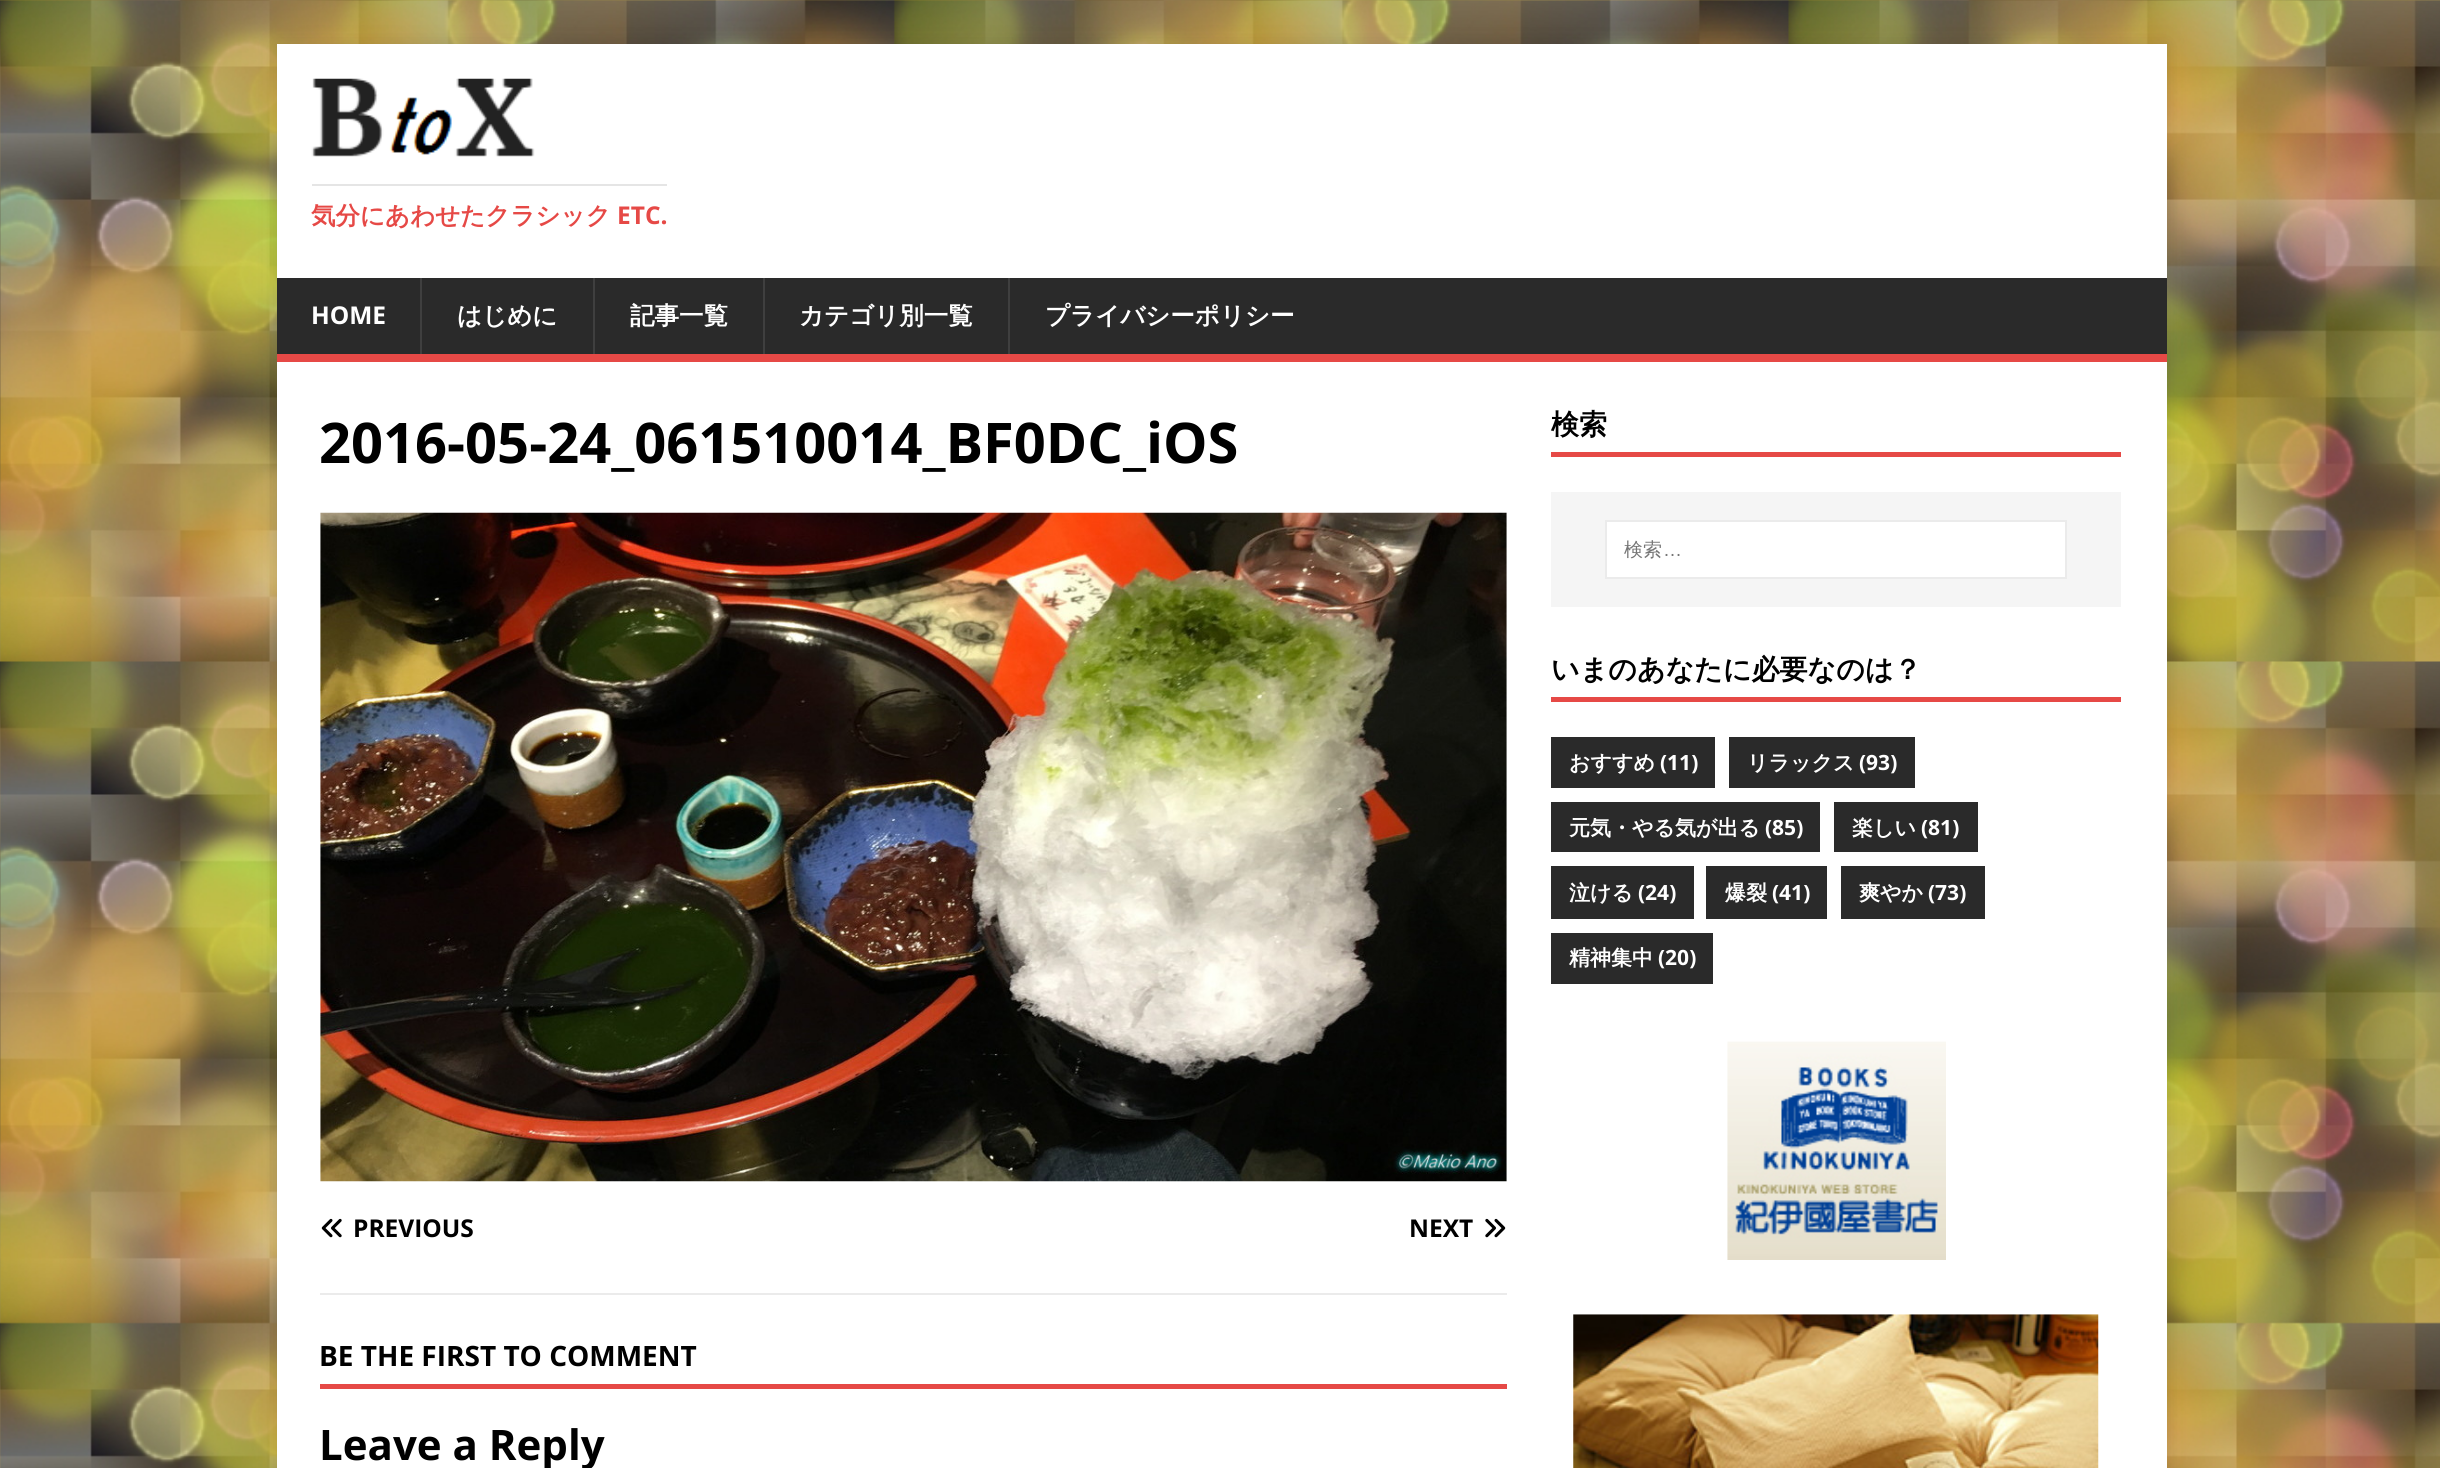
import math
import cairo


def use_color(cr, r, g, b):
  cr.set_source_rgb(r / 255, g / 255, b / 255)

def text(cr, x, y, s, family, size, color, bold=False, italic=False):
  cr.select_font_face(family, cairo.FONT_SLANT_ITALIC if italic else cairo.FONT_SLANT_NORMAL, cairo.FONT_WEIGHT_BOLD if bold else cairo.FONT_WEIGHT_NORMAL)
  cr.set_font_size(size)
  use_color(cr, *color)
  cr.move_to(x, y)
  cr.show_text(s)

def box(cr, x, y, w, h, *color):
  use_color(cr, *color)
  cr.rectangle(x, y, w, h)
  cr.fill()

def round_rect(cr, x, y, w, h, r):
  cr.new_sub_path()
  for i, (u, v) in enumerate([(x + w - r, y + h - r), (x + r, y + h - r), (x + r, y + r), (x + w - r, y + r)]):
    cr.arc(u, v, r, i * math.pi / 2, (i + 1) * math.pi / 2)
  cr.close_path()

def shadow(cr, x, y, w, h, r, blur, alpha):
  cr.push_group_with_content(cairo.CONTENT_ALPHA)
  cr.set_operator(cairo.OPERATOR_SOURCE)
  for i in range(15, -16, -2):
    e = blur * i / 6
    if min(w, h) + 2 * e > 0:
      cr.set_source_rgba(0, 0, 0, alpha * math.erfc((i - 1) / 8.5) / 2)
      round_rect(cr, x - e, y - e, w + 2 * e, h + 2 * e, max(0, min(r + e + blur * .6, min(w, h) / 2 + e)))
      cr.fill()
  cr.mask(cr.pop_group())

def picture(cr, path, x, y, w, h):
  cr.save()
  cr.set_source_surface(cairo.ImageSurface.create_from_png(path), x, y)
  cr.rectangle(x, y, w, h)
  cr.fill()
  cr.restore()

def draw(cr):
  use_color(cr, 255, 255, 255)
  cr.paint()
  picture(cr, "img_01.png", 0, 0, 2440, 1468)
  use_color(cr, 50, 50, 50)
  shadow(cr, 277, 44, 1890, 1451, 0, 9, 0.17)
  box(cr, 277, 44, 1890, 234, 255, 255, 255)
  picture(cr, "img_02.png", 311, 78, 224, 79)
  box(cr, 312, 184, 355, 2, 229, 229, 229)
  box(cr, 277, 278, 1890, 76, 42, 42, 42)
  box(cr, 277, 354, 1890, 8, 230, 73, 70)
  box(cr, 420, 278, 2, 76, 63, 63, 63)
  box(cr, 593, 278, 2, 76, 63, 63, 63)
  box(cr, 763, 278, 2, 76, 63, 63, 63)
  box(cr, 1008, 278, 2, 76, 63, 63, 63)
  box(cr, 277, 362, 1890, 1106, 255, 255, 255)
  picture(cr, "img_03.png", 320, 512, 1187, 670)
  box(cr, 320, 1293, 1187, 2, 235, 235, 235)
  picture(cr, "img_04.png", 321, 1218, 21, 20)
  picture(cr, "img_05.png", 1485, 1218, 21, 20)
  box(cr, 320, 1384, 1187, 5, 230, 73, 70)
  box(cr, 1551, 452, 570, 5, 230, 73, 70)
  box(cr, 1551, 492, 570, 115, 245, 245, 245)
  use_color(cr, 255, 255, 255)
  cr.rectangle(1606, 521, 460, 57)
  cr.fill_preserve()
  use_color(cr, 235, 235, 235)
  cr.stroke()
  box(cr, 1551, 697, 570, 5, 230, 73, 70)
  box(cr, 1551, 737, 164, 51, 42, 42, 42)
  box(cr, 1729, 737, 186, 51, 42, 42, 42)
  box(cr, 1551, 802, 269, 50, 42, 42, 42)
  box(cr, 1834, 802, 144, 50, 42, 42, 42)
  box(cr, 1551, 866, 143, 53, 42, 42, 42)
  box(cr, 1706, 866, 121, 53, 42, 42, 42)
  box(cr, 1841, 866, 144, 53, 42, 42, 42)
  box(cr, 1551, 933, 162, 51, 42, 42, 42)
  picture(cr, "img_06.png", 1727, 1041, 219, 219)
  picture(cr, "img_07.png", 1573, 1314, 526, 154)
  text(cr, 311, 224, "気分にあわせたクラシック", "WenQuanYi Zen Hei", 24.5, (230, 73, 70), bold=True)
  text(cr, 617, 224, "ETC.", "Open Sans", 24.5, (230, 73, 70), bold=True)
  text(cr, 311, 324, "HOME", "Open Sans", 24.5, (255, 255, 255), bold=True)
  text(cr, 457, 324, "はじめに", "WenQuanYi Zen Hei", 24.5, (255, 255, 255), bold=True)
  text(cr, 630, 324, "記事一覧", "WenQuanYi Zen Hei", 24.5, (255, 255, 255), bold=True)
  text(cr, 799, 324, "カテゴリ別一覧", "WenQuanYi Zen Hei", 24.5, (255, 255, 255), bold=True)
  text(cr, 1045, 324, "プライバシーポリシー", "WenQuanYi Zen Hei", 24.5, (255, 255, 255), bold=True)
  text(cr, 319, 463, "2016-05-24_061510014_BF0DC_iOS", "Open Sans", 56, (0, 0, 0), bold=True)
  text(cr, 353, 1237, "PREVIOUS", "Open Sans", 24.5, (0, 0, 0), bold=True)
  text(cr, 1409, 1237, "NEXT", "Open Sans", 24.5, (0, 0, 0), bold=True)
  text(cr, 319, 1366, "BE THE FIRST TO COMMENT", "Open Sans", 28, (0, 0, 0), bold=True)
  text(cr, 319, 1460, "Leave a Reply", "Open Sans", 42, (0, 0, 0), bold=True)
  text(cr, 1551, 434, "検索", "WenQuanYi Zen Hei", 28, (0, 0, 0), bold=True)
  text(cr, 1624, 556, "検索", "WenQuanYi Zen Hei Medium", 19, (117, 117, 117))
  text(cr, 1663, 556, "…", "Liberation Sans", 19, (117, 117, 117))
  text(cr, 1551, 679, "いまのあなたに必要なのは？", "WenQuanYi Zen Hei", 28, (0, 0, 0), bold=True)
  text(cr, 1569, 770, "おすすめ", "WenQuanYi Zen Hei", 21, (255, 255, 255), bold=True)
  text(cr, 1660, 770, "(11)", "Open Sans", 21, (255, 255, 255), bold=True)
  text(cr, 1747, 770, "リラックス", "WenQuanYi Zen Hei", 21, (255, 255, 255), bold=True)
  text(cr, 1859, 770, "(93)", "Open Sans", 21, (255, 255, 255), bold=True)
  text(cr, 1569, 835, "元気・やる気が出る", "WenQuanYi Zen Hei", 21, (255, 255, 255), bold=True)
  text(cr, 1765, 835, "(85)", "Open Sans", 21, (255, 255, 255), bold=True)
  text(cr, 1852, 835, "楽しい", "WenQuanYi Zen Hei", 21, (255, 255, 255), bold=True)
  text(cr, 1921, 835, "(81)", "Open Sans", 21, (255, 255, 255), bold=True)
  text(cr, 1569, 900, "泣ける", "WenQuanYi Zen Hei", 21, (255, 255, 255), bold=True)
  text(cr, 1638, 900, "(24)", "Open Sans", 21, (255, 255, 255), bold=True)
  text(cr, 1725, 900, "爆裂", "WenQuanYi Zen Hei", 21, (255, 255, 255), bold=True)
  text(cr, 1772, 900, "(41)", "Open Sans", 21, (255, 255, 255), bold=True)
  text(cr, 1859, 900, "爽やか", "WenQuanYi Zen Hei", 21, (255, 255, 255), bold=True)
  text(cr, 1928, 900, "(73)", "Open Sans", 21, (255, 255, 255), bold=True)
  text(cr, 1569, 965, "精神集中", "WenQuanYi Zen Hei", 21, (255, 255, 255), bold=True)
  text(cr, 1658, 965, "(20)", "Open Sans", 21, (255, 255, 255), bold=True)


surface = cairo.ImageSurface(cairo.FORMAT_RGB24, 2440, 1468)
cr = cairo.Context(surface)
options = cairo.FontOptions()
options.set_hint_metrics(cairo.HINT_METRICS_OFF)
options.set_hint_style(cairo.HINT_STYLE_NONE)
cr.set_font_options(options)
cr.set_miter_limit(4)
draw(cr)
surface.write_to_png("out.png")
